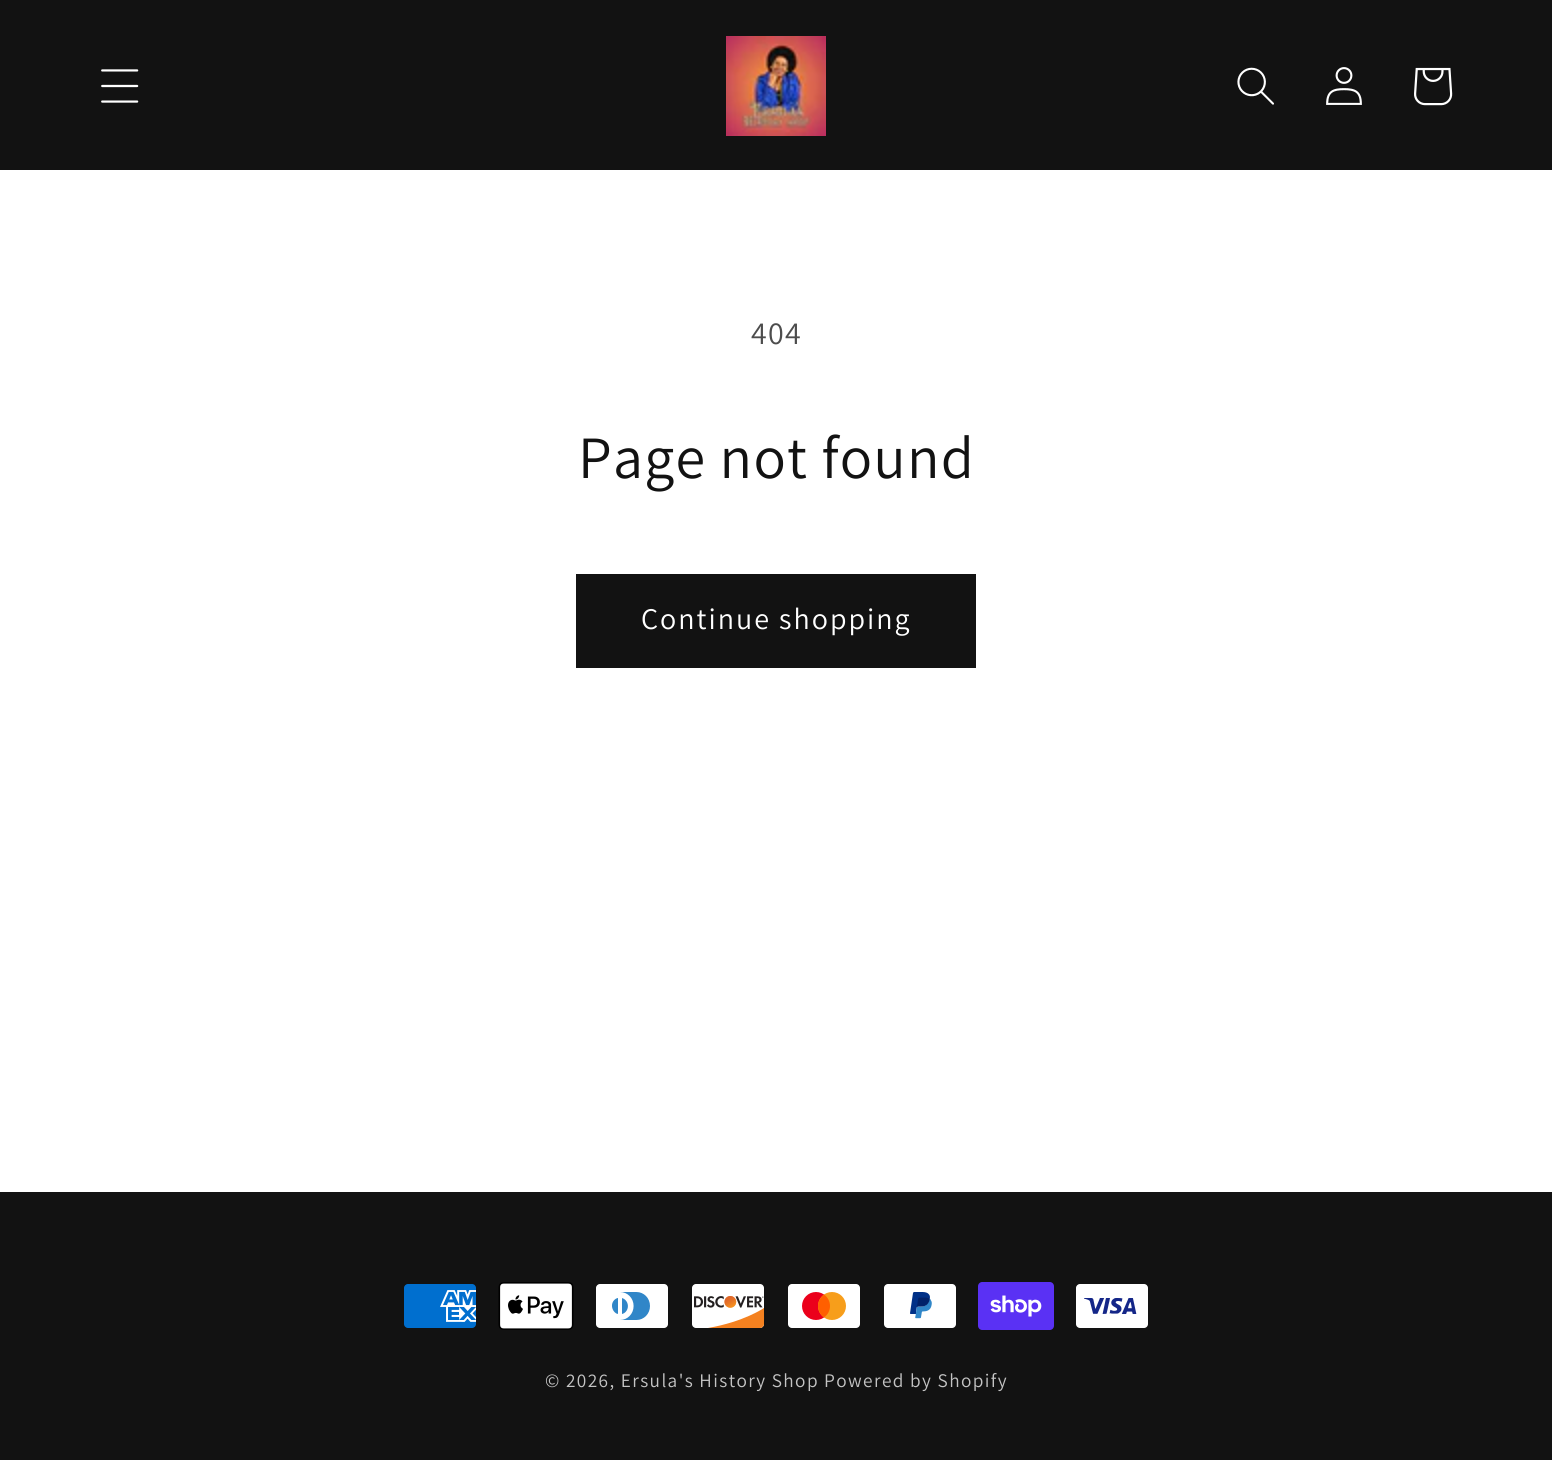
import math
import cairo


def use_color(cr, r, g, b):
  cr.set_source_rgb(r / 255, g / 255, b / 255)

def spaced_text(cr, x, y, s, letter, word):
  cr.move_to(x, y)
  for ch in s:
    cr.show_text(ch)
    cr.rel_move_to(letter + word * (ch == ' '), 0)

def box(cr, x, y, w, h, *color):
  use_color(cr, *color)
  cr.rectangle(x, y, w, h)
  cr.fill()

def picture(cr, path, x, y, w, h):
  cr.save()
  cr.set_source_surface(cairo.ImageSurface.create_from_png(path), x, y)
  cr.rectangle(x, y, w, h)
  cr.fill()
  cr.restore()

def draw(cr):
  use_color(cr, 255, 255, 255)
  cr.paint()
  box(cr, 0, 0, 1552, 170, 18, 18, 18)
  picture(cr, "img_01.png", 101, 69, 38, 34)
  picture(cr, "img_02.png", 726, 36, 100, 100)
  picture(cr, "img_03.png", 1237, 67, 37, 38)
  picture(cr, "img_04.png", 1326, 67, 36, 38)
  picture(cr, "img_05.png", 1414, 67, 39, 39)
  cr.rectangle(577, 575, 398, 92)
  cr.stroke()
  box(cr, 578, 576, 396, 90, 18, 18, 18)
  box(cr, 0, 1192, 1552, 268, 18, 18, 18)
  picture(cr, "img_06.png", 404, 1284, 72, 44)
  picture(cr, "img_07.png", 498, 1282, 76, 48)
  picture(cr, "img_08.png", 596, 1284, 72, 44)
  picture(cr, "img_09.png", 692, 1284, 73, 44)
  picture(cr, "img_10.png", 788, 1284, 72, 44)
  picture(cr, "img_11.png", 884, 1284, 72, 44)
  picture(cr, "img_12.png", 978, 1282, 76, 48)
  picture(cr, "img_13.png", 1076, 1284, 72, 44)
  cr.select_font_face("Assistant")
  cr.set_font_size(32)
  use_color(cr, 77, 77, 77)
  spaced_text(cr, 751, 344, "404", 1.25, 0)
  cr.set_font_size(60)
  use_color(cr, 18, 18, 18)
  spaced_text(cr, 578, 478, "Page not found", 1.25, 0)
  cr.set_font_size(30)
  use_color(cr, 255, 255, 255)
  spaced_text(cr, 641, 629, "Continue shopping", 2, 0)
  cr.set_font_size(19.25)
  use_color(cr, 196, 196, 196)
  spaced_text(cr, 545, 1387, "© 2026, Ersula's History Shop", 1.4, 0)
  spaced_text(cr, 824, 1387, "Powered by Shopify", 1.4, 0)


surface = cairo.ImageSurface(cairo.FORMAT_RGB24, 1552, 1460)
cr = cairo.Context(surface)
options = cairo.FontOptions()
options.set_hint_metrics(cairo.HINT_METRICS_OFF)
options.set_hint_style(cairo.HINT_STYLE_NONE)
cr.set_font_options(options)
cr.set_miter_limit(4)
draw(cr)
surface.write_to_png("out.png")
